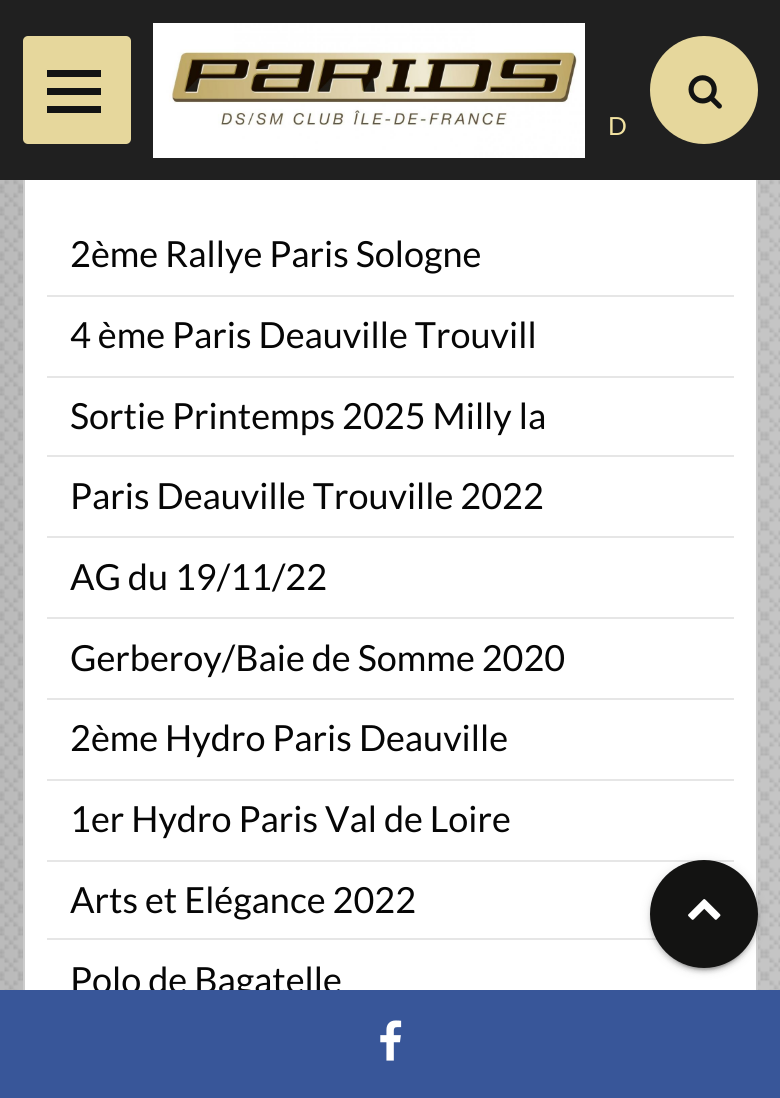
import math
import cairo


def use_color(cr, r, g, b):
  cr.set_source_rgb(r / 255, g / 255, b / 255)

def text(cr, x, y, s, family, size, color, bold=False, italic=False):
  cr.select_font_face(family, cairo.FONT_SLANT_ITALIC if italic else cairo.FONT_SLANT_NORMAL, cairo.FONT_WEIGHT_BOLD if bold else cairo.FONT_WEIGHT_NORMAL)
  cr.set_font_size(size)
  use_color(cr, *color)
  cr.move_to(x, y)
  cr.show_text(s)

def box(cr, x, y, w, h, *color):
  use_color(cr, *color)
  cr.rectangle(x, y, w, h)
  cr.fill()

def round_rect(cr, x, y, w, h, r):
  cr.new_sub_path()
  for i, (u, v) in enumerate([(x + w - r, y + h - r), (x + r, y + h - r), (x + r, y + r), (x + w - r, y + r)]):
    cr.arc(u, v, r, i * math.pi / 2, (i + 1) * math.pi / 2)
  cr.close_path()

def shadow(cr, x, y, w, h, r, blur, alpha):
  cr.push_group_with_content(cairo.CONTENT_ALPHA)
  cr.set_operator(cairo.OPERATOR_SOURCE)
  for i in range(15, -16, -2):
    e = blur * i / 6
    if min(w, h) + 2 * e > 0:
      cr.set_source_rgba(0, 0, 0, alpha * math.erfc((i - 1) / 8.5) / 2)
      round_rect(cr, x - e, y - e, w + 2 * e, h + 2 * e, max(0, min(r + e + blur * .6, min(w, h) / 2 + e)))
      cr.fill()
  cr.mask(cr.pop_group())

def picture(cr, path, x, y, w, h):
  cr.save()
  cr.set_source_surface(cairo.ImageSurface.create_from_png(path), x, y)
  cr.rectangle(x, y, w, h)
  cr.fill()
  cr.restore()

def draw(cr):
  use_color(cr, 197, 197, 197)
  cr.paint()
  picture(cr, "img_03.png", 0, 180, 780, 810)
  box(cr, 23, 180, 735, 810, 255, 255, 255)
  cr.rectangle(24, 96, 733, 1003)
  cr.set_source_rgba(0, 0, 0, 0.2)
  cr.stroke()
  box(cr, 0, 0, 780, 180, 32, 32, 32)
  use_color(cr, 230, 215, 156)
  round_rect(cr, 23, 36, 108, 108, 5)
  cr.fill()
  box(cr, 47, 88, 54, 7, 18, 19, 19)
  box(cr, 47, 70, 54, 7, 18, 19, 19)
  box(cr, 47, 106, 54, 7, 18, 19, 19)
  picture(cr, "img_01.png", 153, 23, 432, 135)
  use_color(cr, 230, 215, 156)
  cr.arc(704, 90, 54, 0, 2 * math.pi)
  cr.fill()
  picture(cr, "img_02.png", 688, 75, 34, 34)
  gradient = cairo.LinearGradient(0, 147, 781, 147)
  gradient.add_color_stop_rgba(0, 0, 0, 0, 0.05)
  gradient.add_color_stop_rgba(1, 0, 0, 0, 0)
  cr.set_source(gradient)
  cr.rectangle(0, 180, 23, 810)
  cr.fill()
  box(cr, 47, 295, 687, 2, 230, 230, 230)
  box(cr, 47, 376, 687, 2, 230, 230, 230)
  box(cr, 47, 455, 687, 2, 230, 230, 230)
  box(cr, 47, 536, 687, 2, 230, 230, 230)
  box(cr, 47, 617, 687, 2, 230, 230, 230)
  box(cr, 47, 698, 687, 2, 230, 230, 230)
  box(cr, 47, 779, 687, 2, 230, 230, 230)
  box(cr, 47, 860, 687, 2, 230, 230, 230)
  box(cr, 47, 938, 610, 2, 230, 230, 230)
  use_color(cr, 0, 0, 0)
  shadow(cr, 650, 862, 108, 108, 54, 5.5, 0.12)
  shadow(cr, 655, 871, 99, 99, 49.5, 1, 0.2)
  shadow(cr, 650, 864, 108, 108, 54, 2, 0.14)
  use_color(cr, 19, 19, 18)
  cr.arc(704, 914, 54, 0, 2 * math.pi)
  cr.fill()
  picture(cr, "img_04.png", 688, 899, 33, 21)
  text(cr, 608, 135, "D", "Lato", 25, (242, 226, 161))
  text(cr, 70, 267, "2ème Rallye Paris Sologne", "Lato", 36, (6, 6, 6))
  text(cr, 70, 348, "4 ème Paris Deauville Trouvill", "Lato", 36, (6, 6, 6))
  text(cr, 70, 429, "Sortie Printemps 2025 Milly la", "Lato", 36, (6, 6, 6))
  text(cr, 70, 509, "Paris Deauville Trouville 2022", "Lato", 36, (6, 6, 6))
  text(cr, 70, 590, "AG du 19/11/22", "Lato", 36, (6, 6, 6))
  text(cr, 70, 671, "Gerberoy/Baie de Somme 2020", "Lato", 36, (6, 6, 6))
  text(cr, 70, 751, "2ème Hydro Paris Deauville", "Lato", 36, (6, 6, 6))
  text(cr, 70, 832, "1er Hydro Paris Val de Loire", "Lato", 36, (6, 6, 6))
  text(cr, 70, 913, "Arts et Elégance 2022", "Lato", 36, (6, 6, 6))
  text(cr, 70, 993, "Polo de Bagatelle", "Lato", 36, (6, 6, 6))
  box(cr, 0, 990, 780, 108, 56, 86, 153)
  picture(cr, "img_05.png", 380, 1020, 22, 41)


surface = cairo.ImageSurface(cairo.FORMAT_RGB24, 780, 1098)
cr = cairo.Context(surface)
options = cairo.FontOptions()
options.set_hint_metrics(cairo.HINT_METRICS_OFF)
options.set_hint_style(cairo.HINT_STYLE_NONE)
cr.set_font_options(options)
cr.set_miter_limit(4)
draw(cr)
surface.write_to_png("out.png")
